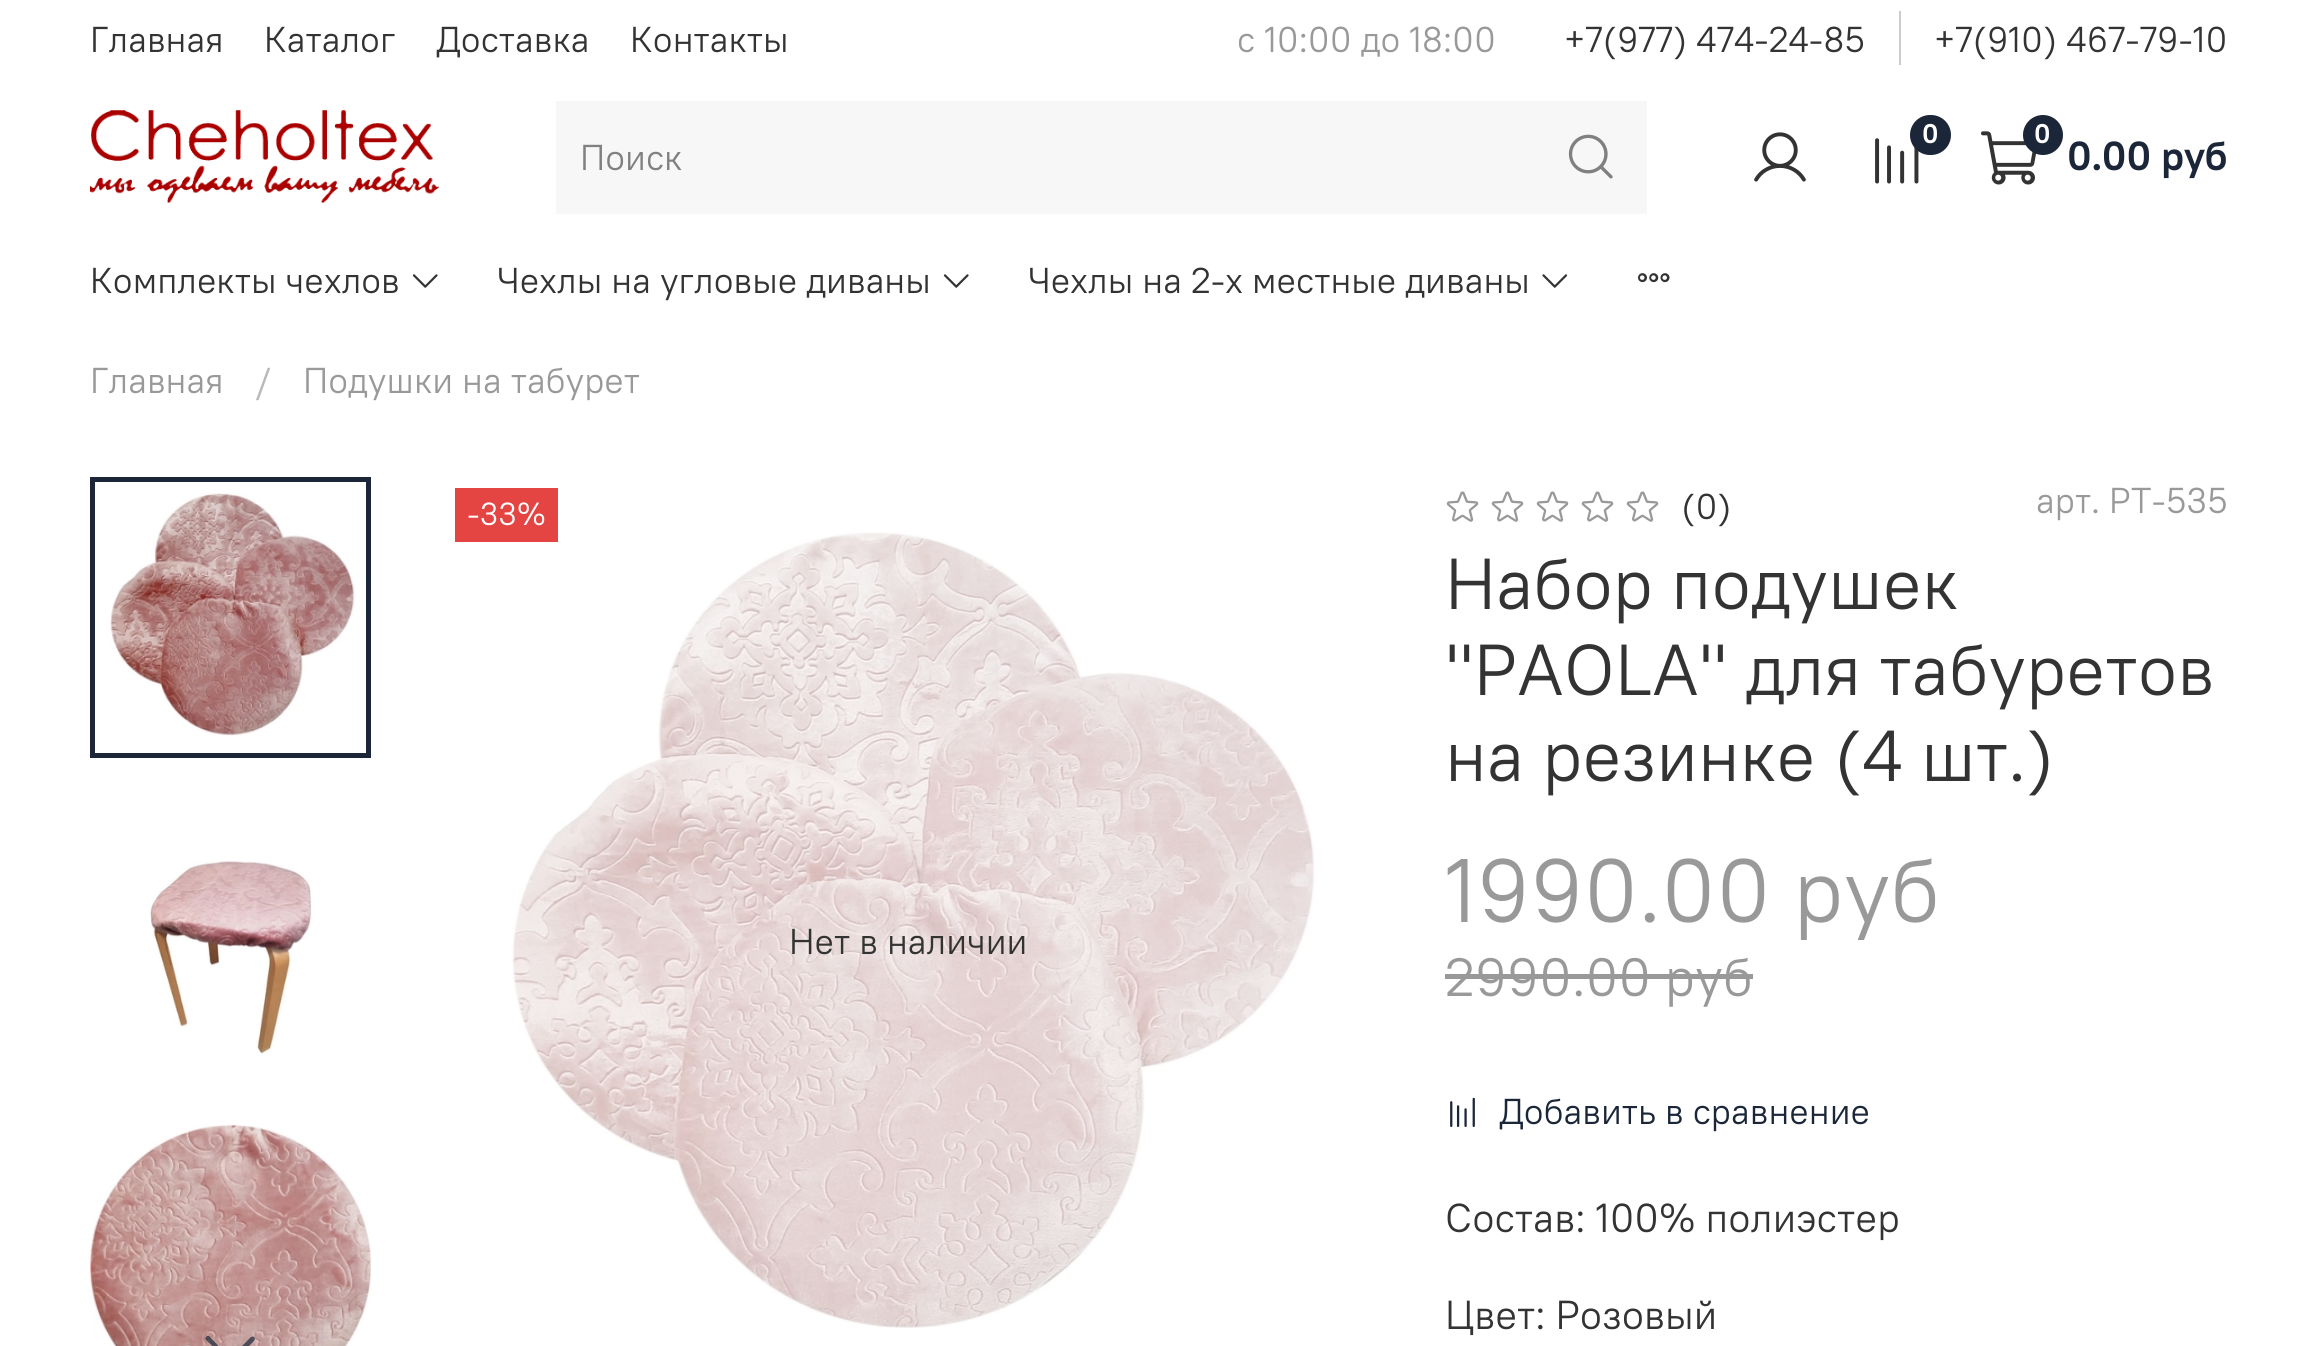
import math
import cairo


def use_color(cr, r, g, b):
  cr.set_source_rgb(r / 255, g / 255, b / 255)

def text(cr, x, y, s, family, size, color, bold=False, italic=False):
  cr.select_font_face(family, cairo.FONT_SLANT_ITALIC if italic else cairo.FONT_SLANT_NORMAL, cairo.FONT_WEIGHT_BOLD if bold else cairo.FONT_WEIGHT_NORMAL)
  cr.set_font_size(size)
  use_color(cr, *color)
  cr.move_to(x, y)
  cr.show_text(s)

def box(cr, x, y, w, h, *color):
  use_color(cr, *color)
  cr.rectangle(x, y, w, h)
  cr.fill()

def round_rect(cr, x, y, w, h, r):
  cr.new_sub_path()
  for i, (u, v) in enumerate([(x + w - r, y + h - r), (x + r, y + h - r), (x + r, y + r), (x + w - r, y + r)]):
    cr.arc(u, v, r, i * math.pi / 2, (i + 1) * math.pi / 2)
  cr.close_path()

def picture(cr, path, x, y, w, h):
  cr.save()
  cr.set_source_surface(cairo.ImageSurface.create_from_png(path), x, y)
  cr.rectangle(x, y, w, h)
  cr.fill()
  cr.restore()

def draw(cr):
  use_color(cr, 255, 255, 255)
  cr.paint()
  box(cr, 1899, 11, 2, 54, 204, 204, 204)
  picture(cr, "img_01.png", 90, 110, 349, 93)
  box(cr, 556, 101, 1091, 113, 247, 247, 247)
  picture(cr, "img_02.png", 1568, 134, 45, 45)
  picture(cr, "img_03.png", 1754, 132, 52, 50)
  picture(cr, "img_04.png", 1875, 138, 44, 46)
  use_color(cr, 27, 39, 56)
  round_rect(cr, 1910, 115, 41, 40, 20)
  cr.fill()
  picture(cr, "img_05.png", 1981, 131, 56, 54)
  cr.arc(2043, 135, 20, 0, 2 * math.pi)
  cr.fill()
  picture(cr, "img_06.png", 412, 274, 26, 14)
  picture(cr, "img_06.png", 943, 274, 26, 14)
  picture(cr, "img_07.png", 1542, 274, 26, 14)
  picture(cr, "img_08.png", 1638, 273, 32, 10)
  picture(cr, "img_09.png", 110, 493, 245, 243)
  cr.rectangle(92.5, 479.5, 276, 276)
  cr.set_line_width(5)
  cr.stroke()
  picture(cr, "img_10.png", 150, 861, 162, 193)
  picture(cr, "img_11.png", 90, 1125, 281, 221)
  cr.set_source_rgba(0.106, 0.153, 0.22, 0.7)
  cr.new_path()
  cr.move_to(232, 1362)
  cr.line_to(251, 1344)
  cr.curve_to(252, 1343, 257, 1339, 254, 1337)
  cr.curve_to(252, 1335, 249, 1339, 248, 1340)
  cr.line_to(230, 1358)
  cr.line_to(209, 1336)
  cr.curve_to(207, 1335, 204, 1338, 206, 1340)
  cr.line_to(229, 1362)
  cr.curve_to(230, 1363, 231, 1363, 232, 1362)
  cr.close_path()
  cr.fill()
  picture(cr, "img_12.png", 512, 532, 803, 796)
  box(cr, 455, 488, 103, 54, 228, 69, 66)
  picture(cr, "img_13.png", 1446, 491, 33, 31)
  picture(cr, "img_13.png", 1491, 491, 33, 31)
  picture(cr, "img_13.png", 1536, 491, 33, 31)
  picture(cr, "img_13.png", 1581, 491, 33, 31)
  picture(cr, "img_13.png", 1626, 491, 33, 31)
  box(cr, 1445, 974, 308, 5, 153, 153, 153)
  picture(cr, "img_14.png", 1450, 1097, 25, 30)
  text(cr, 90, 52, "Главная", "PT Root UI", 36, (51, 51, 51))
  text(cr, 264, 52, "Каталог", "PT Root UI", 36, (51, 51, 51))
  text(cr, 436, 52, "Доставка", "PT Root UI", 36, (51, 51, 51))
  text(cr, 630, 52, "Контакты", "PT Root UI", 36, (51, 51, 51))
  text(cr, 1237, 52, "с 10:00 до 18:00", "PT Root UI", 36, (153, 153, 153))
  text(cr, 1564, 52, "+7(977) 474-24-85", "PT Root UI", 36, (51, 51, 51))
  text(cr, 1934, 52, "+7(910) 467-79-10", "PT Root UI", 36, (51, 51, 51))
  text(cr, 580, 170, "Поиск", "PT Root UI", 36, (128, 128, 128))
  text(cr, 1922, 143, "0", "PT Root UI", 27, (255, 255, 255), bold=True)
  text(cr, 2034, 143, "0", "PT Root UI", 27, (255, 255, 255), bold=True)
  text(cr, 2067, 170, "0.00 руб", "PT Root UI", 40.5, (27, 39, 56), bold=True)
  text(cr, 90, 293, "Комплекты чехлов", "PT Root UI", 36, (51, 51, 51))
  text(cr, 497, 293, "Чехлы на угловые диваны", "PT Root UI", 36, (51, 51, 51))
  text(cr, 1028, 293, "Чехлы на 2-х местные диваны", "PT Root UI", 36, (51, 51, 51))
  text(cr, 90, 393, "Главная", "PT Root UI", 36, (153, 153, 153))
  text(cr, 255, 393, "/", "PT Root UI", 36, (184, 184, 184))
  text(cr, 303, 393, "Подушки на табурет", "PT Root UI", 36, (153, 153, 153))
  text(cr, 467, 525, "-33%", "PT Root UI", 32, (255, 255, 255))
  text(cr, 789, 954, "Нет в наличии", "PT Root UI", 36, (51, 51, 51))
  text(cr, 1681, 519, "(0)", "PT Root UI", 36, (51, 51, 51))
  text(cr, 2036, 513, "арт. PT-535", "PT Root UI", 36, (153, 153, 153))
  text(cr, 1445, 609, "Набор подушек", "PT Root UI", 72, (51, 51, 51))
  text(cr, 1445, 695, "\"PAOLA\" для табуретов", "PT Root UI", 72, (51, 51, 51))
  text(cr, 1445, 781, "на резинке (4 шт.)", "PT Root UI", 72, (51, 51, 51))
  text(cr, 1445, 922, "1990.00 руб", "PT Root UI", 90, (153, 153, 153))
  text(cr, 1445, 996, "2990.00 руб", "PT Root UI", 54, (153, 153, 153))
  text(cr, 1499, 1124, "Добавить в сравнение", "PT Root UI", 36, (27, 39, 56))
  text(cr, 1445, 1232, "Состав: 100% полиэстер", "PT Root UI", 40.5, (51, 51, 51))
  text(cr, 1445, 1329, "Цвет: Розовый", "PT Root UI", 40.5, (51, 51, 51))


surface = cairo.ImageSurface(cairo.FORMAT_RGB24, 2317, 1346)
cr = cairo.Context(surface)
options = cairo.FontOptions()
options.set_hint_metrics(cairo.HINT_METRICS_OFF)
options.set_hint_style(cairo.HINT_STYLE_NONE)
cr.set_font_options(options)
cr.set_miter_limit(4)
draw(cr)
surface.write_to_png("out.png")
